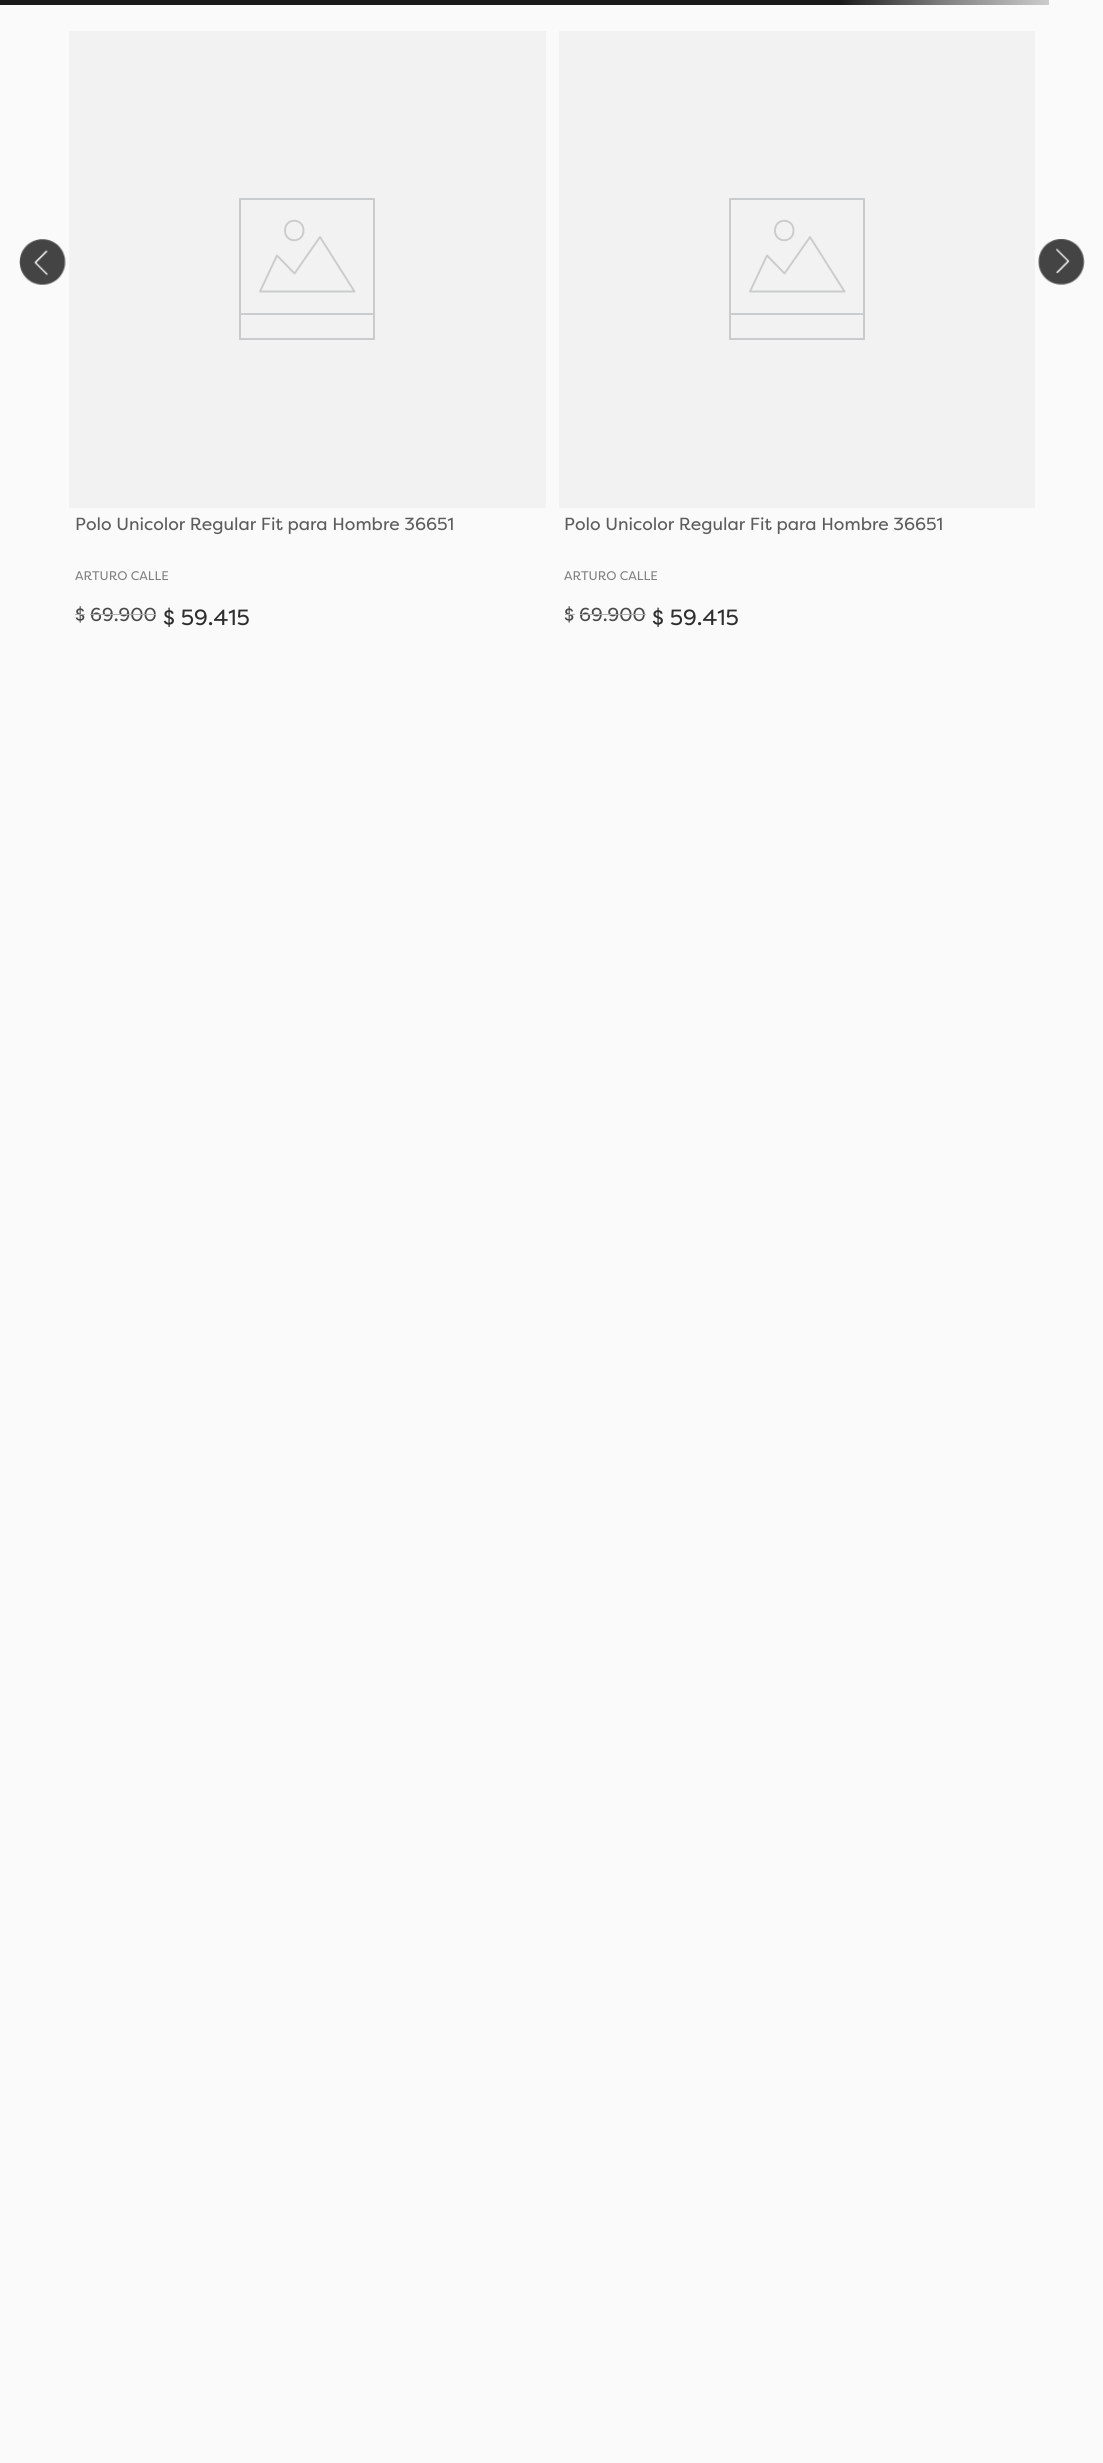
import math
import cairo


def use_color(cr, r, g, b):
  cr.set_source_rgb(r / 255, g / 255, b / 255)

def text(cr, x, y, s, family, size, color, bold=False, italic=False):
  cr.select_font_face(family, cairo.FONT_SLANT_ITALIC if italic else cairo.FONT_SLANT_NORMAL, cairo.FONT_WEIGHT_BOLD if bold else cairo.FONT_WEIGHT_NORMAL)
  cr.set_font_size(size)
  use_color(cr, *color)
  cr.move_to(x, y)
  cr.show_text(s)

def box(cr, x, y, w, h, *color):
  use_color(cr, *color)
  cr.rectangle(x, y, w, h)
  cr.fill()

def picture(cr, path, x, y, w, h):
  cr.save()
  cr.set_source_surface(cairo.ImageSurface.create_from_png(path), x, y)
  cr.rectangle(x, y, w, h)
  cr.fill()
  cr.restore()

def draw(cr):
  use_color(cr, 250, 250, 250)
  cr.paint()
  gradient = cairo.LinearGradient(0, 2.5, 1049, 2.5)
  gradient.add_color_stop_rgba(0.8, 0.102, 0.102, 0.102, 1)
  gradient.add_color_stop_rgba(0.9, 0.502, 0.502, 0.502, 1)
  gradient.add_color_stop_rgba(1, 0.8, 0.8, 0.8, 1)
  cr.set_source(gradient)
  cr.rectangle(0, 0, 1049, 5)
  cr.fill()
  picture(cr, "img_01.png", 19, 239, 47, 46)
  picture(cr, "img_02.png", 1038, 239, 47, 46)
  box(cr, 69, 31, 477, 477, 242, 242, 242)
  cr.rectangle(240, 199, 134, 140)
  use_color(cr, 202, 203, 204)
  cr.stroke()
  cr.new_path()
  cr.move_to(260, 291.5)
  cr.line_to(277, 255.5)
  cr.line_to(294.5, 273.5)
  cr.line_to(320, 237)
  cr.line_to(354.5, 291.5)
  cr.close_path()
  cr.set_line_width(1.9)
  cr.set_line_cap(cairo.LINE_CAP_ROUND)
  cr.set_line_join(cairo.LINE_JOIN_ROUND)
  cr.stroke()
  cr.new_path()
  cr.move_to(303.5, 230.5)
  cr.curve_to(303.5, 243.5, 285, 243.5, 285, 230.5)
  cr.curve_to(285, 217.5, 303.5, 217.5, 303.5, 230.5)
  cr.close_path()
  cr.set_line_cap(cairo.LINE_CAP_BUTT)
  cr.set_line_join(cairo.LINE_JOIN_MITER)
  cr.stroke()
  cr.set_source_rgba(0.792, 0.796, 0.8, 0.95)
  cr.rectangle(240, 313, 135, 2)
  cr.fill()
  box(cr, 559, 31, 476, 477, 242, 242, 242)
  cr.rectangle(730, 199, 134, 140)
  use_color(cr, 202, 203, 204)
  cr.set_line_width(2)
  cr.stroke()
  cr.new_path()
  cr.move_to(750, 291.5)
  cr.line_to(767, 255.5)
  cr.line_to(784.5, 273.5)
  cr.line_to(810, 237)
  cr.line_to(844.5, 291.5)
  cr.close_path()
  cr.set_line_width(1.9)
  cr.set_line_cap(cairo.LINE_CAP_ROUND)
  cr.set_line_join(cairo.LINE_JOIN_ROUND)
  cr.stroke()
  cr.new_path()
  cr.move_to(793.5, 230.5)
  cr.curve_to(793.5, 243.5, 775, 243.5, 775, 230.5)
  cr.curve_to(775, 217.5, 793.5, 217.5, 793.5, 230.5)
  cr.close_path()
  cr.set_line_cap(cairo.LINE_CAP_BUTT)
  cr.set_line_join(cairo.LINE_JOIN_MITER)
  cr.stroke()
  cr.set_source_rgba(0.792, 0.796, 0.8, 0.95)
  cr.rectangle(730, 313, 135, 2)
  cr.fill()
  text(cr, 75, 530, "Polo Unicolor Regular Fit para Hombre 36651", "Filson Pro", 17.5, (92, 92, 92))
  text(cr, 75, 580, "ARTURO CALLE", "Filson Pro", 12.5, (128, 128, 128))
  text(cr, 75, 621, "$ 69.900", "Filson Pro", 18.75, (73, 73, 73))
  box(cr, 75, 614, 10, 1, 176, 176, 176)
  box(cr, 90, 614, 66, 1, 176, 176, 176)
  text(cr, 163, 625, "$ 59.415", "Filson Pro", 22, (46, 46, 46))
  text(cr, 564, 530, "Polo Unicolor Regular Fit para Hombre 36651", "Filson Pro", 17.5, (92, 92, 92))
  text(cr, 564, 580, "ARTURO CALLE", "Filson Pro", 12.5, (128, 128, 128))
  text(cr, 564, 621, "$ 69.900", "Filson Pro", 18.75, (73, 73, 73))
  box(cr, 565, 614, 10, 1, 176, 176, 176)
  box(cr, 580, 614, 66, 1, 176, 176, 176)
  text(cr, 652, 625, "$ 59.415", "Filson Pro", 22, (46, 46, 46))


surface = cairo.ImageSurface(cairo.FORMAT_RGB24, 1103, 2463)
cr = cairo.Context(surface)
options = cairo.FontOptions()
options.set_hint_metrics(cairo.HINT_METRICS_OFF)
options.set_hint_style(cairo.HINT_STYLE_NONE)
cr.set_font_options(options)
cr.set_miter_limit(4)
draw(cr)
surface.write_to_png("out.png")
